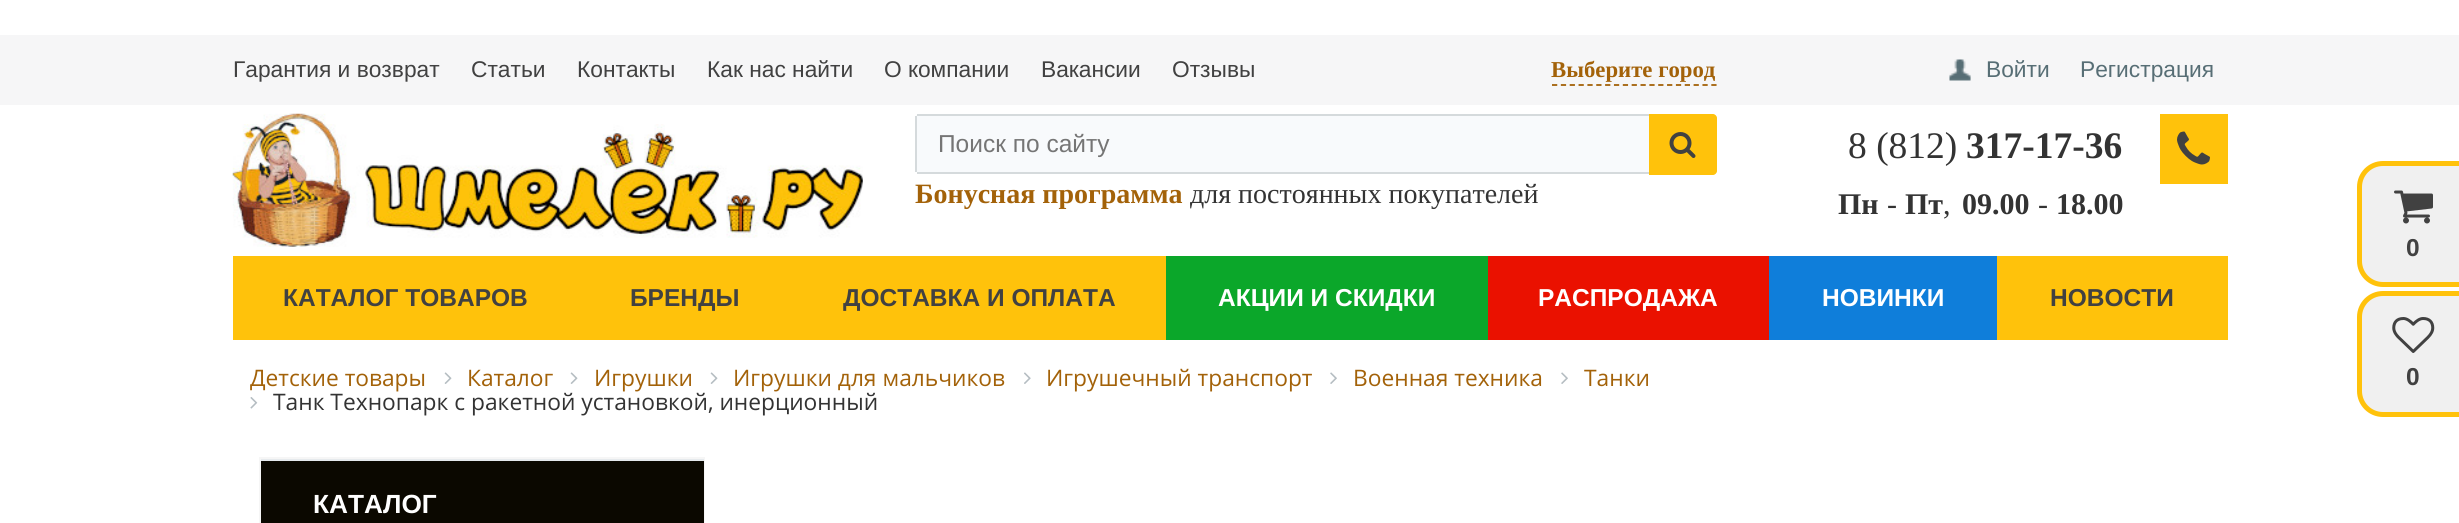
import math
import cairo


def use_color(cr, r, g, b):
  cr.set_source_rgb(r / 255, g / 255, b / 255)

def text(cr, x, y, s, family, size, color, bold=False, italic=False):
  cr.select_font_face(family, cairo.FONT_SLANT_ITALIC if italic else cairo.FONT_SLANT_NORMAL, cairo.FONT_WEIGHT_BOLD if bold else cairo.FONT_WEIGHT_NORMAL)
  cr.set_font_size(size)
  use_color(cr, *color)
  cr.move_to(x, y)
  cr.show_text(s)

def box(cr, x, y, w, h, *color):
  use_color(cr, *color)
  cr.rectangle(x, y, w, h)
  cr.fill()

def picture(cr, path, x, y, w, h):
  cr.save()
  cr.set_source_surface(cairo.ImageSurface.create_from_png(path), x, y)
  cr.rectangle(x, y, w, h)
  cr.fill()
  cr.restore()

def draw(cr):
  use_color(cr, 255, 255, 255)
  cr.paint()
  box(cr, 0, 35, 2459, 70, 246, 246, 247)
  use_color(cr, 240, 240, 240)
  cr.new_path()
  cr.move_to(2383, 163.5)
  cr.line_to(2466.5, 163.5)
  cr.line_to(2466.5, 284.5)
  cr.line_to(2383, 284.5)
  cr.curve_to(2370, 284.5, 2359.5, 274, 2359.5, 261)
  cr.line_to(2359.5, 187)
  cr.curve_to(2359.5, 174, 2370, 163.5, 2383, 163.5)
  cr.close_path()
  cr.fill_preserve()
  use_color(cr, 255, 194, 11)
  cr.set_line_width(5)
  cr.stroke()
  picture(cr, "img_01.png", 2394, 190, 39, 34)
  use_color(cr, 240, 240, 240)
  cr.new_path()
  cr.move_to(2383, 293.5)
  cr.line_to(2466.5, 293.5)
  cr.line_to(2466.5, 414.5)
  cr.line_to(2383, 414.5)
  cr.curve_to(2370, 414.5, 2359.5, 404, 2359.5, 391)
  cr.line_to(2359.5, 317)
  cr.curve_to(2359.5, 304, 2370, 293.5, 2383, 293.5)
  cr.close_path()
  cr.fill_preserve()
  use_color(cr, 255, 194, 11)
  cr.stroke()
  picture(cr, "img_02.png", 2392, 317, 43, 36)
  cr.new_path()
  cr.move_to(1552, 85)
  cr.line_to(1717, 85)
  use_color(cr, 163, 98, 9)
  cr.set_line_width(1.8)
  cr.set_dash([5.25, 3.6])
  cr.stroke()
  picture(cr, "img_03.png", 1949, 59, 22, 22)
  picture(cr, "img_04.png", 232, 113, 631, 134)
  use_color(cr, 248, 250, 252)
  cr.new_path()
  cr.move_to(919, 114)
  cr.line_to(1649, 114)
  cr.line_to(1649, 173)
  cr.line_to(919, 173)
  cr.curve_to(917, 173, 915, 171, 915, 169)
  cr.line_to(915, 118)
  cr.curve_to(915, 116, 917, 114, 919, 114)
  cr.close_path()
  cr.fill()
  box(cr, 917, 114, 732, 2, 213, 218, 220)
  box(cr, 917, 172, 732, 2, 213, 218, 220)
  box(cr, 915, 116, 2, 56, 213, 218, 220)
  use_color(cr, 255, 194, 11)
  cr.new_path()
  cr.move_to(1649, 114)
  cr.line_to(1713, 114)
  cr.curve_to(1715, 114, 1717, 116, 1717, 118)
  cr.line_to(1717, 171)
  cr.curve_to(1717, 173, 1715, 175, 1713, 175)
  cr.line_to(1649, 175)
  cr.close_path()
  cr.fill()
  picture(cr, "img_05.png", 1669, 132, 27, 26)
  box(cr, 2160, 114, 68, 70, 255, 194, 11)
  picture(cr, "img_06.png", 2177, 131, 33, 34)
  box(cr, 233, 256, 1995, 84, 255, 194, 11)
  box(cr, 1166, 256, 322, 84, 11, 167, 42)
  box(cr, 1488, 256, 281, 84, 234, 17, 0)
  box(cr, 1769, 256, 228, 84, 15, 126, 218)
  picture(cr, "img_07.png", 444, 372, 8, 12)
  picture(cr, "img_07.png", 570, 372, 8, 12)
  picture(cr, "img_07.png", 710, 372, 8, 12)
  picture(cr, "img_08.png", 1024, 372, 7, 12)
  picture(cr, "img_09.png", 1330, 372, 7, 12)
  picture(cr, "img_09.png", 1561, 372, 7, 12)
  picture(cr, "img_10.png", 250, 397, 8, 12)
  cr.rectangle(260, 458, 444, 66)
  use_color(cr, 246, 246, 246)
  cr.set_line_width(2)
  cr.set_dash([])
  cr.stroke()
  box(cr, 261, 461, 443, 62, 11, 8, 0)
  box(cr, 261, 459, 443, 2, 230, 234, 237)
  text(cr, 233, 77, "Гарантия и возврат", "Liberation Sans", 22.75, (65, 65, 65))
  text(cr, 471, 77, "Статьи", "Liberation Sans", 22.75, (65, 65, 65))
  text(cr, 577, 77, "Контакты", "Liberation Sans", 22.75, (65, 65, 65))
  text(cr, 707, 77, "Как нас найти", "Liberation Sans", 22.75, (65, 65, 65))
  text(cr, 884, 77, "О компании", "Liberation Sans", 22.75, (65, 65, 65))
  text(cr, 1041, 77, "Вакансии", "Liberation Sans", 22.75, (65, 65, 65))
  text(cr, 1172, 77, "Отзывы", "Liberation Sans", 22.75, (65, 65, 65))
  text(cr, 2406, 256, "0", "Liberation Sans", 24.5, (65, 65, 65), bold=True)
  text(cr, 2406, 385, "0", "Liberation Sans", 24.5, (65, 65, 65), bold=True)
  text(cr, 1551, 77, "Выберите город", "Liberation Serif", 22.75, (163, 98, 9), bold=True)
  text(cr, 1986, 77, "Войти", "Liberation Sans", 22.75, (87, 110, 117))
  text(cr, 2080, 77, "Регистрация", "Liberation Sans", 22.75, (87, 110, 117))
  text(cr, 938, 152, "Поиск по сайту", "Liberation Sans", 24.5, (117, 117, 117))
  text(cr, 915, 203, "Бонусная программа", "Liberation Serif", 28, (163, 98, 9), bold=True)
  text(cr, 1190, 203, "для постоянных покупателей", "Liberation Serif", 28, (51, 51, 51))
  text(cr, 1848, 158, "8 (812)", "Liberation Serif", 37.5, (51, 51, 51))
  text(cr, 1966, 158, "317-17-36", "Liberation Serif", 37.5, (51, 51, 51), bold=True)
  text(cr, 1838, 214, "Пн", "Liberation Serif", 30, (51, 51, 51), bold=True)
  text(cr, 1887, 214, "-", "Liberation Serif", 30, (51, 51, 51))
  text(cr, 1905, 214, "Пт", "Liberation Serif", 30, (51, 51, 51), bold=True)
  text(cr, 1962, 214, "09.00", "Liberation Serif", 30, (51, 51, 51), bold=True)
  text(cr, 2038, 214, "-", "Liberation Serif", 30, (51, 51, 51))
  text(cr, 2056, 214, "18.00", "Liberation Serif", 30, (51, 51, 51), bold=True)
  text(cr, 1943, 214, ",", "Liberation Serif", 30, (51, 51, 51))
  text(cr, 283, 306, "КАТАЛОГ ТОВАРОВ", "Liberation Sans", 24.5, (65, 65, 65), bold=True)
  text(cr, 630, 306, "БРЕНДЫ", "Liberation Sans", 24.5, (65, 65, 65), bold=True)
  text(cr, 843, 306, "ДОСТАВКА И ОПЛАТА", "Liberation Sans", 24.5, (65, 65, 65), bold=True)
  text(cr, 1218, 306, "АКЦИИ И СКИДКИ", "Liberation Sans", 24.5, (255, 255, 255), bold=True)
  text(cr, 1538, 306, "РАСПРОДАЖА", "Liberation Sans", 24.5, (255, 255, 255), bold=True)
  text(cr, 1822, 306, "НОВИНКИ", "Liberation Sans", 24.5, (255, 255, 255), bold=True)
  text(cr, 2050, 306, "НОВОСТИ", "Liberation Sans", 24.5, (65, 65, 65), bold=True)
  text(cr, 250, 386, "Детские товары", "Open Sans", 22.75, (163, 98, 9))
  text(cr, 467, 386, "Каталог", "Open Sans", 22.75, (163, 98, 9))
  text(cr, 594, 386, "Игрушки", "Open Sans", 22.75, (163, 98, 9))
  text(cr, 733, 386, "Игрушки для мальчиков", "Open Sans", 22.75, (163, 98, 9))
  text(cr, 1046, 386, "Игрушечный транспорт", "Open Sans", 22.75, (163, 98, 9))
  text(cr, 1353, 386, "Военная техника", "Open Sans", 22.75, (163, 98, 9))
  text(cr, 1584, 386, "Танки", "Open Sans", 22.75, (163, 98, 9))
  text(cr, 273, 410, "Танк Технопарк с ракетной установкой, инерционный", "Open Sans", 22.75, (51, 51, 51))
  text(cr, 313, 513, "КАТАЛОГ", "Liberation Sans", 26.25, (255, 255, 255), bold=True)


surface = cairo.ImageSurface(cairo.FORMAT_RGB24, 2459, 523)
cr = cairo.Context(surface)
options = cairo.FontOptions()
options.set_hint_metrics(cairo.HINT_METRICS_OFF)
options.set_hint_style(cairo.HINT_STYLE_NONE)
cr.set_font_options(options)
cr.set_miter_limit(4)
draw(cr)
surface.write_to_png("out.png")
